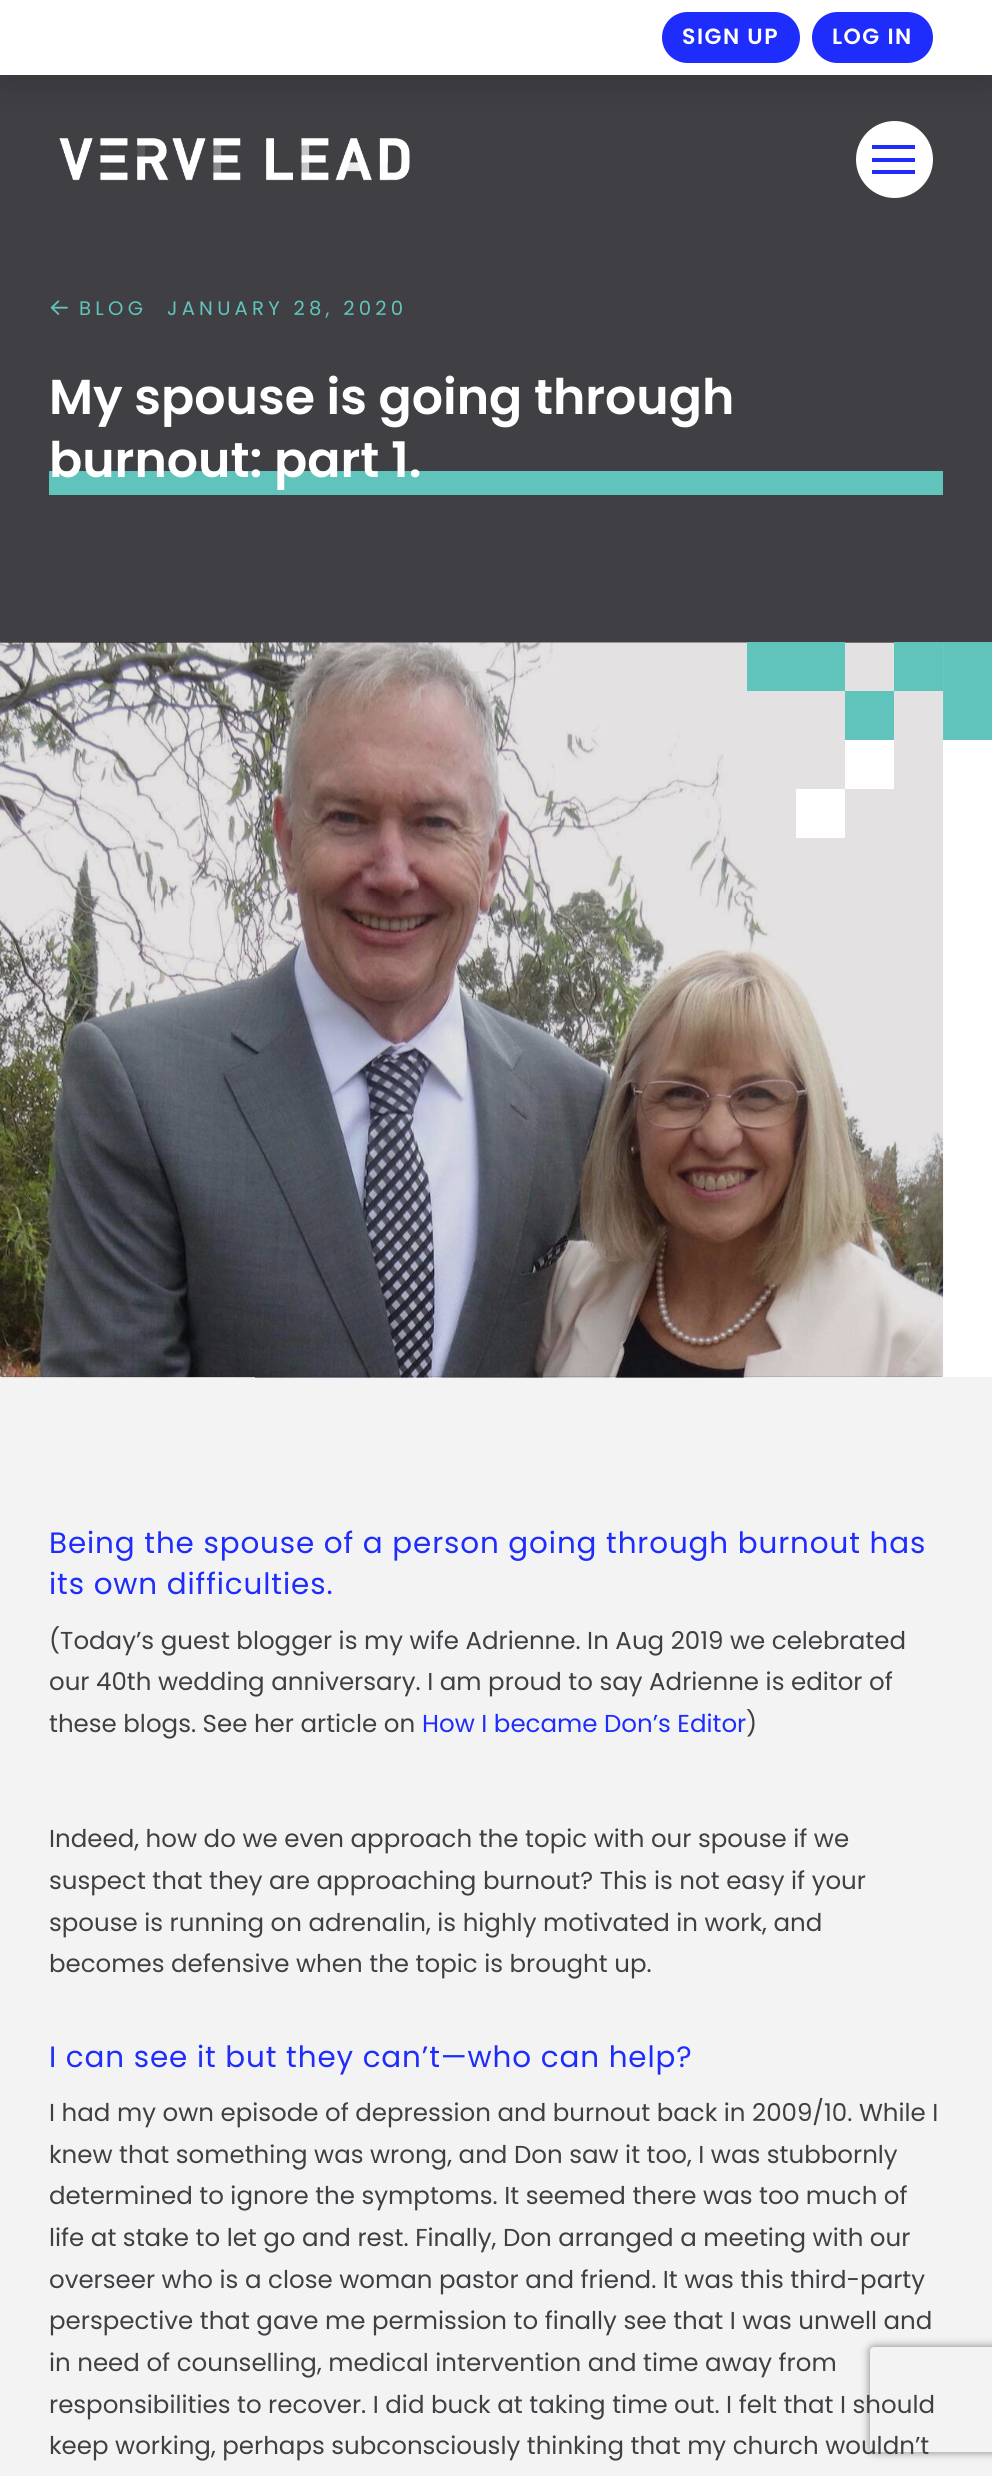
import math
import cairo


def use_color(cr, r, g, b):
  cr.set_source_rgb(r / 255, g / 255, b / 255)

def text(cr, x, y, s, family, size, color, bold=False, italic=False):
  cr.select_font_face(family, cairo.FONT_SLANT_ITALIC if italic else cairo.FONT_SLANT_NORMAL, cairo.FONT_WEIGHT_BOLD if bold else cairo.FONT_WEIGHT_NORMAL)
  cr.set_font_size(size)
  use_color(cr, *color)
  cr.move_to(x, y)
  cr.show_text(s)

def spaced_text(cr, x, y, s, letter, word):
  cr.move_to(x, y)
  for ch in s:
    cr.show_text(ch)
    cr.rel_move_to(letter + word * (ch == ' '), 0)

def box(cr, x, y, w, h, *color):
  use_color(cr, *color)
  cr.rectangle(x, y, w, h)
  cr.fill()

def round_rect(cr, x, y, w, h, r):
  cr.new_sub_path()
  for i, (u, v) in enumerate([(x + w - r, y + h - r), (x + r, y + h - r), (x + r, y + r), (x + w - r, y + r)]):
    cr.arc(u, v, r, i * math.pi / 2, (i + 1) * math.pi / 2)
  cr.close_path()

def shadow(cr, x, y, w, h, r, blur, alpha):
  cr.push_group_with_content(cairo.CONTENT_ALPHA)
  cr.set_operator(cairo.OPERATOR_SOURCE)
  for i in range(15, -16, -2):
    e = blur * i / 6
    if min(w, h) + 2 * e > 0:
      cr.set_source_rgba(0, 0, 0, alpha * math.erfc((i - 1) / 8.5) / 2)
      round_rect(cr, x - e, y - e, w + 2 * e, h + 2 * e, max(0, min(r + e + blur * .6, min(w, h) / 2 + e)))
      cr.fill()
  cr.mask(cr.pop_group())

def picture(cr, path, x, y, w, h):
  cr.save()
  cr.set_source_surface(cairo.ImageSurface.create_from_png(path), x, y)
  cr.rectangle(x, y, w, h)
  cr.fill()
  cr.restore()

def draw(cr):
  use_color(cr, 243, 243, 243)
  cr.paint()
  box(cr, 0, 75, 992, 567, 64, 64, 68)
  picture(cr, "img_01.png", 59, 138, 351, 43)
  use_color(cr, 255, 255, 255)
  cr.arc(894.5, 159.5, 38.5, 0, 2 * math.pi)
  cr.fill()
  box(cr, 872, 145, 43, 4, 30, 45, 252)
  use_color(cr, 0, 0, 0)
  shadow(cr, 0, 5, 992, 76, 0, 22, 0.15)
  box(cr, 0, 0, 992, 75, 255, 255, 255)
  use_color(cr, 30, 45, 252)
  round_rect(cr, 662, 12, 138, 51, 25.5)
  cr.fill()
  round_rect(cr, 812, 12, 121, 51, 25.5)
  cr.fill()
  box(cr, 872, 158, 43, 4, 30, 45, 252)
  box(cr, 872, 170, 43, 4, 30, 45, 252)
  picture(cr, "img_02.png", 50, 300, 18, 15)
  box(cr, 49, 471, 894, 24, 96, 196, 188)
  box(cr, 0, 740, 992, 637, 255, 255, 255)
  box(cr, 0, 642, 992, 98, 96, 196, 188)
  use_color(cr, 31, 13, 17)
  round_rect(cr, 0, 642, 943, 735, 2)
  cr.fill()
  picture(cr, "img_03.png", 0, 642, 944, 736)
  box(cr, 747, 642, 98, 49, 96, 196, 188)
  cr.new_path()
  cr.move_to(894, 642)
  cr.line_to(941, 642)
  cr.curve_to(942, 642, 943, 643, 943, 644)
  cr.line_to(943, 691)
  cr.line_to(894, 691)
  cr.close_path()
  cr.fill()
  box(cr, 845, 691, 49, 49, 96, 196, 188)
  box(cr, 845, 740, 49, 49, 255, 255, 255)
  box(cr, 796, 789, 49, 49, 255, 255, 255)
  cr.save()
  cr.set_fill_rule(cairo.FILL_RULE_EVEN_ODD)
  cr.new_path()
  cr.move_to(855, 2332)
  cr.line_to(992, 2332)
  cr.line_to(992, 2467)
  cr.line_to(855, 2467)
  cr.close_path()
  cr.move_to(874, 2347)
  cr.line_to(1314, 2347)
  cr.curve_to(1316, 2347, 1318, 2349, 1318, 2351)
  cr.line_to(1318, 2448)
  cr.curve_to(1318, 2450, 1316, 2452, 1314, 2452)
  cr.line_to(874, 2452)
  cr.curve_to(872, 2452, 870, 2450, 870, 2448)
  cr.line_to(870, 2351)
  cr.curve_to(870, 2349, 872, 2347, 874, 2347)
  cr.close_path()
  cr.clip()
  use_color(cr, 128, 128, 128)
  shadow(cr, 870, 2347, 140, 105, 4, 4.5, 1)
  cr.restore()
  cr.select_font_face("Poppins SemiBold")
  cr.set_font_size(22)
  spaced_text(cr, 682, 44, "SIGN UP", 1.5, 0)
  spaced_text(cr, 832, 44, "LOG IN", 1.5, 0)
  cr.select_font_face("Poppins")
  cr.set_font_size(19.6)
  use_color(cr, 96, 196, 188)
  spaced_text(cr, 79, 315, "BLOG", 4.25, 0)
  spaced_text(cr, 167, 315, "JANUARY 28, 2020", 4.25, 0)
  text(cr, 49, 414, "My spouse is going through", "Poppins SemiBold", 49, (255, 255, 255))
  text(cr, 49, 477, "burnout: part 1.", "Poppins SemiBold", 49, (255, 255, 255))
  cr.select_font_face("Poppins")
  cr.set_font_size(29.4)
  use_color(cr, 30, 45, 252)
  spaced_text(cr, 49, 1553, "Being the spouse of a person going through burnout has", 0.88, 0)
  spaced_text(cr, 49, 1594, "its own difficulties.", 0.88, 0)
  text(cr, 49, 1649, "(Today’s guest blogger is my wife Adrienne. In Aug 2019 we celebrated", "Poppins", 24.5, (64, 64, 68))
  text(cr, 49, 1690, "our 40th wedding anniversary. I am proud to say Adrienne is editor of", "Poppins", 24.5, (64, 64, 68))
  text(cr, 49, 1732, "these blogs. See her article on", "Poppins", 24.5, (64, 64, 68))
  text(cr, 422, 1732, "How I became Don’s Editor", "Poppins", 24.5, (30, 45, 252))
  text(cr, 746, 1732, ")", "Poppins", 24.5, (64, 64, 68))
  text(cr, 49, 1847, "Indeed, how do we even approach the topic with our spouse if we", "Poppins", 24.5, (64, 64, 68))
  text(cr, 49, 1889, "suspect that they are approaching burnout? This is not easy if your", "Poppins", 24.5, (64, 64, 68))
  text(cr, 49, 1931, "spouse is running on adrenalin, is highly motivated in work, and", "Poppins", 24.5, (64, 64, 68))
  text(cr, 49, 1972, "becomes defensive when the topic is brought up.", "Poppins", 24.5, (64, 64, 68))
  cr.set_font_size(29.4)
  use_color(cr, 30, 45, 252)
  spaced_text(cr, 49, 2067, "I can see it but they can’t—who can help?", 0.88, 0)
  text(cr, 49, 2121, "I had my own episode of depression and burnout back in 2009/10. While I", "Poppins", 24.5, (64, 64, 68))
  text(cr, 49, 2163, "knew that something was wrong, and Don saw it too, I was stubbornly", "Poppins", 24.5, (64, 64, 68))
  text(cr, 49, 2204, "determined to ignore the symptoms. It seemed there was too much of", "Poppins", 24.5, (64, 64, 68))
  text(cr, 49, 2246, "life at stake to let go and rest. Finally, Don arranged a meeting with our", "Poppins", 24.5, (64, 64, 68))
  text(cr, 49, 2288, "overseer who is a close woman pastor and friend. It was this third-party", "Poppins", 24.5, (64, 64, 68))
  text(cr, 49, 2329, "perspective that gave me permission to finally see that I was unwell and", "Poppins", 24.5, (64, 64, 68))
  text(cr, 49, 2371, "in need of counselling, medical intervention and time away from", "Poppins", 24.5, (64, 64, 68))
  text(cr, 49, 2413, "responsibilities to recover. I did buck at taking time out. I felt that I should", "Poppins", 24.5, (64, 64, 68))
  text(cr, 49, 2454, "keep working, perhaps subconsciously thinking that my church wouldn’t", "Poppins", 24.5, (64, 64, 68))


surface = cairo.ImageSurface(cairo.FORMAT_RGB24, 992, 2476)
cr = cairo.Context(surface)
options = cairo.FontOptions()
options.set_hint_metrics(cairo.HINT_METRICS_OFF)
options.set_hint_style(cairo.HINT_STYLE_NONE)
cr.set_font_options(options)
cr.set_miter_limit(4)
draw(cr)
surface.write_to_png("out.png")
